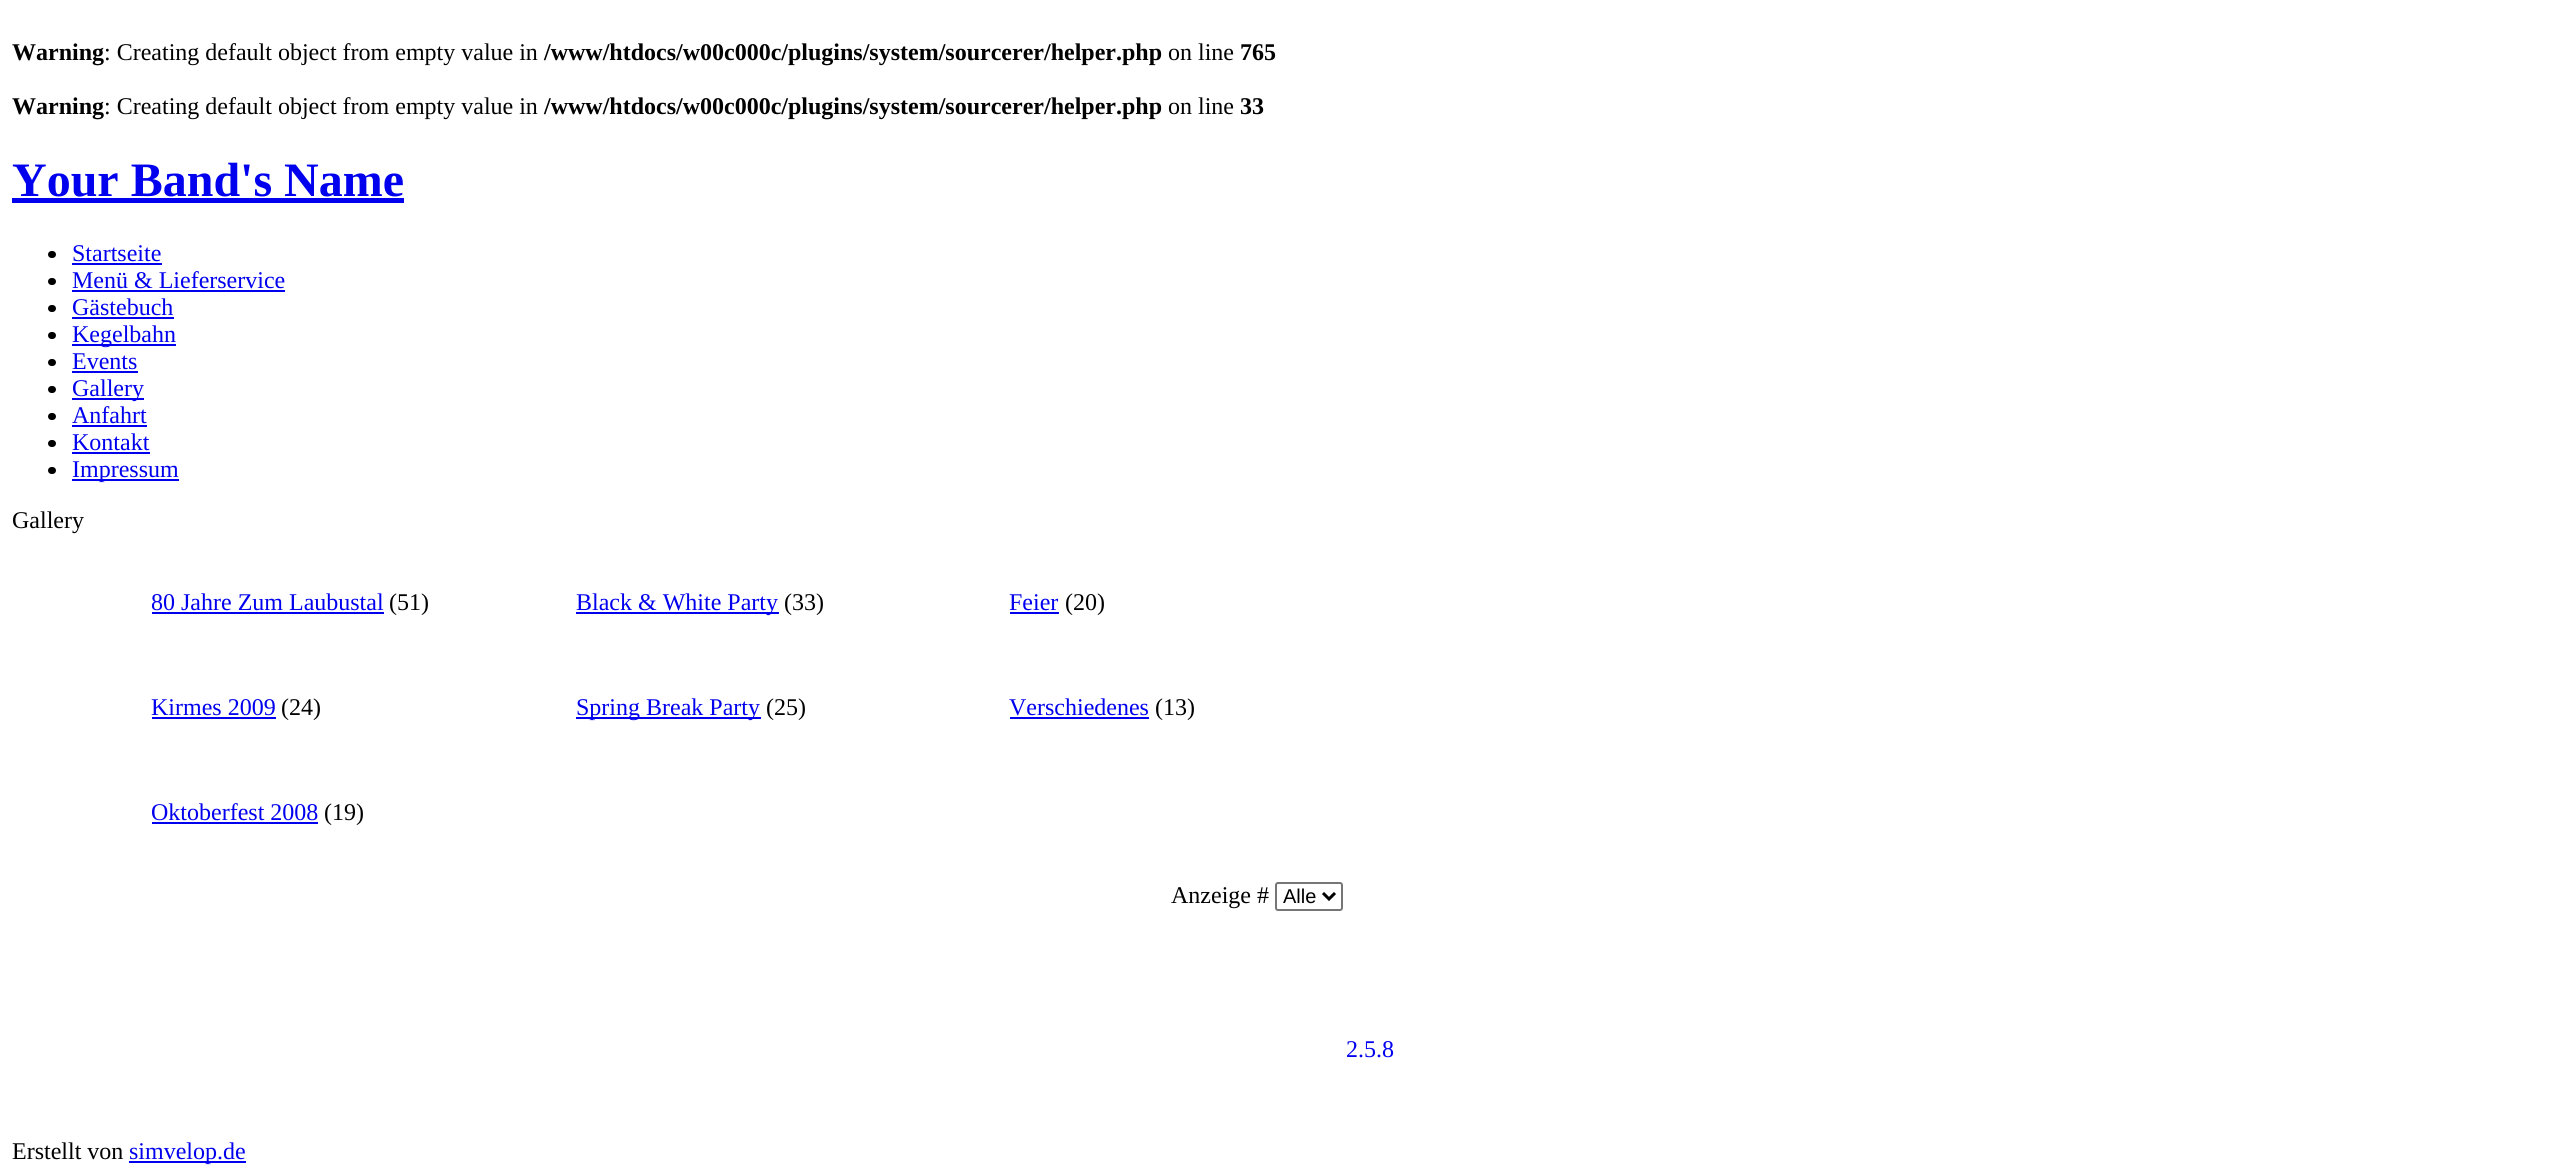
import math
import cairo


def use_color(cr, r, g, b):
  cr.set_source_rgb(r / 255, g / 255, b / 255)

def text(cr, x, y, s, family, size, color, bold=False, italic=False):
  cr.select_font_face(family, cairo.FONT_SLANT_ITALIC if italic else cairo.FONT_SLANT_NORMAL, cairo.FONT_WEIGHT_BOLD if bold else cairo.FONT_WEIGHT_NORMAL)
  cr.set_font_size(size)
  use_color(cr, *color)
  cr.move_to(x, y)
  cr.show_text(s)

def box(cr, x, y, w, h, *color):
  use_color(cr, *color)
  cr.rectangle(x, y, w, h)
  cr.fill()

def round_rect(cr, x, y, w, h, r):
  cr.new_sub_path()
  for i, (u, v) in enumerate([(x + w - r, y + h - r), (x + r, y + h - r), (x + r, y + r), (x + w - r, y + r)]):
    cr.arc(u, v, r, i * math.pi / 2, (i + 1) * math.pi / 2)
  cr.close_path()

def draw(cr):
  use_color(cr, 255, 255, 255)
  cr.paint()
  box(cr, 12, 198, 392, 5, 0, 0, 238)
  use_color(cr, 0, 0, 0)
  round_rect(cr, 48, 251, 8, 7, 3.5)
  cr.fill()
  box(cr, 72, 263, 90, 2, 0, 0, 238)
  use_color(cr, 0, 0, 0)
  round_rect(cr, 48, 278, 8, 7, 3.5)
  cr.fill()
  box(cr, 72, 290, 213, 2, 0, 0, 238)
  use_color(cr, 0, 0, 0)
  round_rect(cr, 48, 305, 8, 7, 3.5)
  cr.fill()
  box(cr, 72, 317, 102, 2, 0, 0, 238)
  use_color(cr, 0, 0, 0)
  round_rect(cr, 48, 332, 8, 7, 3.5)
  cr.fill()
  box(cr, 72, 344, 104, 2, 0, 0, 238)
  use_color(cr, 0, 0, 0)
  round_rect(cr, 48, 359, 8, 7, 3.5)
  cr.fill()
  box(cr, 72, 371, 66, 2, 0, 0, 238)
  use_color(cr, 0, 0, 0)
  round_rect(cr, 48, 386, 8, 7, 3.5)
  cr.fill()
  box(cr, 72, 398, 72, 2, 0, 0, 238)
  use_color(cr, 0, 0, 0)
  round_rect(cr, 48, 413, 8, 7, 3.5)
  cr.fill()
  box(cr, 72, 425, 75, 2, 0, 0, 238)
  use_color(cr, 0, 0, 0)
  round_rect(cr, 48, 440, 8, 7, 3.5)
  cr.fill()
  box(cr, 72, 452, 78, 2, 0, 0, 238)
  use_color(cr, 0, 0, 0)
  round_rect(cr, 48, 467, 8, 7, 3.5)
  cr.fill()
  box(cr, 72, 479, 107, 2, 0, 0, 238)
  box(cr, 152, 612, 232, 2, 0, 0, 238)
  box(cr, 152, 717, 124, 2, 0, 0, 238)
  box(cr, 152, 822, 166, 2, 0, 0, 238)
  box(cr, 576, 612, 203, 2, 0, 0, 238)
  box(cr, 576, 717, 185, 2, 0, 0, 238)
  box(cr, 1010, 612, 49, 2, 0, 0, 238)
  box(cr, 1010, 717, 139, 2, 0, 0, 238)
  round_rect(cr, 1276, 883, 66, 27, 2)
  use_color(cr, 118, 118, 118)
  cr.stroke()
  cr.new_path()
  cr.move_to(1323, 893)
  cr.line_to(1329, 899)
  cr.line_to(1335, 893)
  use_color(cr, 0, 0, 0)
  cr.set_line_width(3)
  cr.stroke()
  box(cr, 129, 1161, 117, 2, 0, 0, 238)
  text(cr, 12, 60, "Warning", "Liberation Serif", 24, (0, 0, 0), bold=True)
  text(cr, 104, 60, ": Creating default object from empty value in", "Liberation Serif", 24, (0, 0, 0))
  text(cr, 544, 60, "/www/htdocs/w00c000c/plugins/system/sourcerer/helper.php", "Liberation Serif", 24, (0, 0, 0), bold=True)
  text(cr, 1168, 60, "on line", "Liberation Serif", 24, (0, 0, 0))
  text(cr, 1240, 60, "765", "Liberation Serif", 24, (0, 0, 0), bold=True)
  text(cr, 12, 114, "Warning", "Liberation Serif", 24, (0, 0, 0), bold=True)
  text(cr, 104, 114, ": Creating default object from empty value in", "Liberation Serif", 24, (0, 0, 0))
  text(cr, 544, 114, "/www/htdocs/w00c000c/plugins/system/sourcerer/helper.php", "Liberation Serif", 24, (0, 0, 0), bold=True)
  text(cr, 1168, 114, "on line", "Liberation Serif", 24, (0, 0, 0))
  text(cr, 1240, 114, "33", "Liberation Serif", 24, (0, 0, 0), bold=True)
  text(cr, 12, 196, "Your Band's Name", "Liberation Serif", 48, (0, 0, 238), bold=True)
  text(cr, 72, 261, "Startseite", "Liberation Serif", 24, (0, 0, 238))
  text(cr, 72, 288, "Menü & Lieferservice", "Liberation Serif", 24, (0, 0, 238))
  text(cr, 72, 315, "Gästebuch", "Liberation Serif", 24, (0, 0, 238))
  text(cr, 72, 342, "Kegelbahn", "Liberation Serif", 24, (0, 0, 238))
  text(cr, 72, 369, "Events", "Liberation Serif", 24, (0, 0, 238))
  text(cr, 72, 396, "Gallery", "Liberation Serif", 24, (0, 0, 238))
  text(cr, 72, 423, "Anfahrt", "Liberation Serif", 24, (0, 0, 238))
  text(cr, 72, 450, "Kontakt", "Liberation Serif", 24, (0, 0, 238))
  text(cr, 72, 477, "Impressum", "Liberation Serif", 24, (0, 0, 238))
  text(cr, 12, 528, "Gallery", "Liberation Serif", 24, (0, 0, 0))
  text(cr, 151, 610, "80 Jahre Zum Laubustal", "Liberation Serif", 24, (0, 0, 238))
  text(cr, 389, 610, "(51)", "Liberation Serif", 24, (0, 0, 0))
  text(cr, 151, 715, "Kirmes 2009", "Liberation Serif", 24, (0, 0, 238))
  text(cr, 281, 715, "(24)", "Liberation Serif", 24, (0, 0, 0))
  text(cr, 151, 820, "Oktoberfest 2008", "Liberation Serif", 24, (0, 0, 238))
  text(cr, 324, 820, "(19)", "Liberation Serif", 24, (0, 0, 0))
  text(cr, 576, 610, "Black & White Party", "Liberation Serif", 24, (0, 0, 238))
  text(cr, 784, 610, "(33)", "Liberation Serif", 24, (0, 0, 0))
  text(cr, 576, 715, "Spring Break Party", "Liberation Serif", 24, (0, 0, 238))
  text(cr, 766, 715, "(25)", "Liberation Serif", 24, (0, 0, 0))
  text(cr, 1009, 610, "Feier", "Liberation Serif", 24, (0, 0, 238))
  text(cr, 1065, 610, "(20)", "Liberation Serif", 24, (0, 0, 0))
  text(cr, 1009, 715, "Verschiedenes", "Liberation Serif", 24, (0, 0, 238))
  text(cr, 1155, 715, "(13)", "Liberation Serif", 24, (0, 0, 0))
  text(cr, 1171, 903, "Anzeige #", "Liberation Serif", 24, (0, 0, 0))
  text(cr, 1283, 903, "Alle", "Liberation Sans", 20, (0, 0, 0))
  text(cr, 1346, 1057, "2.5.8", "Liberation Serif", 24, (0, 0, 238))
  text(cr, 12, 1159, "Erstellt von", "Liberation Serif", 24, (0, 0, 0))
  text(cr, 129, 1159, "simvelop.de", "Liberation Serif", 24, (0, 0, 238))


surface = cairo.ImageSurface(cairo.FORMAT_RGB24, 2574, 1173)
cr = cairo.Context(surface)
options = cairo.FontOptions()
options.set_hint_metrics(cairo.HINT_METRICS_OFF)
options.set_hint_style(cairo.HINT_STYLE_NONE)
cr.set_font_options(options)
cr.set_miter_limit(4)
draw(cr)
surface.write_to_png("out.png")
